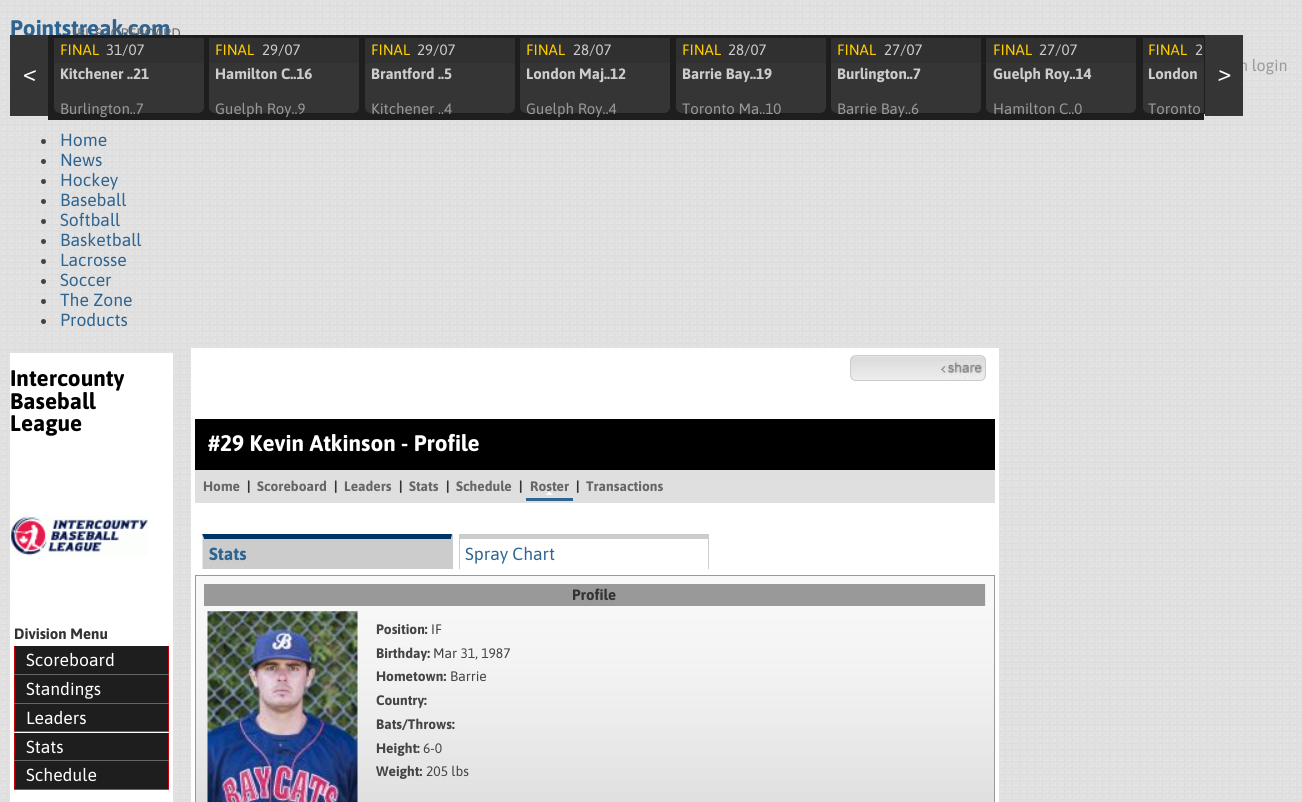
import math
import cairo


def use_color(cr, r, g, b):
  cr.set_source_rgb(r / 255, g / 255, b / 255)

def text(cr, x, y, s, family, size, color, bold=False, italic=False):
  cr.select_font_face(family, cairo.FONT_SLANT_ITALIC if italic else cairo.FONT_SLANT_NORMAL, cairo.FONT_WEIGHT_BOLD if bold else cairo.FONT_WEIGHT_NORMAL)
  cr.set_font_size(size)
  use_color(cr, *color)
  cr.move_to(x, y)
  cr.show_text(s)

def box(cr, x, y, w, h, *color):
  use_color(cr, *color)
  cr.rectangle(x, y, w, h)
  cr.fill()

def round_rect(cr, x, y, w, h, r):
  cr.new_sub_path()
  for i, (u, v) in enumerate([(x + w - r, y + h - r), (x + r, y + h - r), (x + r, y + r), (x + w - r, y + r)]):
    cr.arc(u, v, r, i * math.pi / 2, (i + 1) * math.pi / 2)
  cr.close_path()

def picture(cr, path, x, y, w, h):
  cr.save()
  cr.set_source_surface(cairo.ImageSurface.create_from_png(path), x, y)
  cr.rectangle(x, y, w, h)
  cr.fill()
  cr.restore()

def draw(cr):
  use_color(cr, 255, 255, 255)
  cr.paint()
  picture(cr, "img_01.png", 0, 0, 1302, 802)
  use_color(cr, 68, 68, 68)
  cr.arc(43.5, 141.5, 2.5, 0, 2 * math.pi)
  cr.fill()
  cr.arc(43.5, 161.5, 2.5, 0, 2 * math.pi)
  cr.fill()
  cr.arc(43.5, 181.5, 2.5, 0, 2 * math.pi)
  cr.fill()
  cr.arc(43.5, 201.5, 2.5, 0, 2 * math.pi)
  cr.fill()
  cr.arc(43.5, 221.5, 2.5, 0, 2 * math.pi)
  cr.fill()
  cr.arc(43.5, 241.5, 2.5, 0, 2 * math.pi)
  cr.fill()
  cr.arc(43.5, 261.5, 2.5, 0, 2 * math.pi)
  cr.fill()
  cr.arc(43.5, 281.5, 2.5, 0, 2 * math.pi)
  cr.fill()
  cr.arc(43.5, 301.5, 2.5, 0, 2 * math.pi)
  cr.fill()
  cr.arc(43.5, 321.5, 2.5, 0, 2 * math.pi)
  cr.fill()
  box(cr, 1204, 35, 1, 79, 30, 30, 30)
  box(cr, 10, 353, 163, 449, 255, 255, 255)
  picture(cr, "img_02.png", 10, 516, 138, 40)
  box(cr, 14, 674, 155, 1, 102, 102, 102)
  box(cr, 15, 646, 153, 28, 30, 30, 30)
  box(cr, 168, 646, 1, 28, 198, 0, 10)
  box(cr, 14, 646, 1, 28, 198, 0, 10)
  box(cr, 14, 703, 155, 1, 102, 102, 102)
  box(cr, 15, 675, 153, 28, 30, 30, 30)
  box(cr, 168, 675, 1, 28, 198, 0, 10)
  box(cr, 14, 675, 1, 28, 198, 0, 10)
  box(cr, 14, 731, 155, 1, 102, 102, 102)
  box(cr, 15, 704, 153, 27, 30, 30, 30)
  box(cr, 168, 704, 1, 27, 198, 0, 10)
  box(cr, 14, 704, 1, 27, 198, 0, 10)
  box(cr, 14, 760, 155, 1, 102, 102, 102)
  box(cr, 15, 733, 153, 27, 30, 30, 30)
  box(cr, 168, 733, 1, 27, 198, 0, 10)
  box(cr, 14, 733, 1, 27, 198, 0, 10)
  box(cr, 14, 789, 155, 1, 102, 102, 102)
  box(cr, 15, 761, 153, 28, 30, 30, 30)
  box(cr, 168, 761, 1, 28, 198, 0, 10)
  box(cr, 14, 761, 1, 28, 198, 0, 10)
  box(cr, 191, 348, 808, 454, 255, 255, 255)
  picture(cr, "img_03.png", 850, 356, 136, 25)
  round_rect(cr, 850.5, 355.5, 135, 25, 5.5)
  use_color(cr, 204, 204, 204)
  cr.set_line_width(1)
  cr.stroke()
  picture(cr, "img_04.png", 940, 359, 43, 19)
  box(cr, 195, 419, 800, 51, 0, 0, 0)
  box(cr, 195, 470, 800, 33, 223, 223, 223)
  box(cr, 526, 498, 47, 3, 46, 100, 145)
  picture(cr, "img_05.png", 546, 491, 7, 4)
  box(cr, 203, 534, 250, 35, 204, 204, 204)
  use_color(cr, 0, 51, 102)
  cr.new_path()
  cr.move_to(202, 534)
  cr.line_to(452, 534)
  cr.line_to(451, 539)
  cr.line_to(204, 539)
  cr.close_path()
  cr.fill()
  use_color(cr, 204, 204, 204)
  cr.new_path()
  cr.move_to(452.5, 534)
  cr.line_to(452.5, 569)
  cr.line_to(451, 569)
  cr.line_to(451, 539)
  cr.close_path()
  cr.fill()
  cr.new_path()
  cr.move_to(202.5, 569)
  cr.line_to(202.5, 534)
  cr.line_to(204, 539)
  cr.line_to(204, 569)
  cr.close_path()
  cr.fill()
  box(cr, 459, 534, 250, 5, 204, 204, 204)
  box(cr, 708, 534, 1, 35, 204, 204, 204)
  box(cr, 459, 534, 1, 35, 204, 204, 204)
  picture(cr, "img_06.png", 196, 576, 798, 226)
  cr.rectangle(195.5, 575.5, 799, 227)
  use_color(cr, 153, 153, 153)
  cr.stroke()
  box(cr, 204, 584, 781, 22, 153, 153, 153)
  box(cr, 985, 584, 1, 22, 239, 239, 239)
  picture(cr, "img_07.png", 207, 611, 151, 191)
  text(cr, 10, 36, "Pointstreak.com", "Asap", 22.5, (46, 100, 145), bold=True)
  text(cr, 1239, 71, "n login", "Asap", 16, (153, 153, 153))
  text(cr, 60, 146, "Home", "Asap", 17.5, (46, 100, 145))
  text(cr, 60, 166, "News", "Asap", 17.5, (46, 100, 145))
  text(cr, 60, 186, "Hockey", "Asap", 17.5, (46, 100, 145))
  text(cr, 60, 206, "Baseball", "Asap", 17.5, (46, 100, 145))
  text(cr, 60, 226, "Softball", "Asap", 17.5, (46, 100, 145))
  text(cr, 60, 246, "Basketball", "Asap", 17.5, (46, 100, 145))
  text(cr, 60, 266, "Lacrosse", "Asap", 17.5, (46, 100, 145))
  text(cr, 60, 286, "Soccer", "Asap", 17.5, (46, 100, 145))
  text(cr, 60, 306, "The Zone", "Asap", 17.5, (46, 100, 145))
  text(cr, 60, 326, "Products", "Asap", 17.5, (46, 100, 145))
  text(cr, 73, 38, "IBL SCOREBOARD", "Asap", 13.75, (102, 102, 102))
  box(cr, 10, 35, 38, 81, 53, 53, 53)
  text(cr, 23, 81, "<", "Asap", 24, (255, 255, 255), italic=True)
  box(cr, 48, 35, 1156, 85, 30, 30, 30)
  use_color(cr, 53, 53, 53)
  round_rect(cr, 54, 38, 150, 75, 6)
  cr.fill()
  box(cr, 54, 38, 150, 25, 48, 48, 48)
  text(cr, 60, 55, "FINAL", "Asap", 15, (255, 204, 0))
  text(cr, 106, 55, "31/07", "Asap", 15, (204, 204, 204))
  text(cr, 60, 79, "Kitchener ..21", "Asap", 15, (204, 204, 204), bold=True)
  text(cr, 60, 114, "Burlington..7", "Asap", 15, (153, 153, 153))
  use_color(cr, 53, 53, 53)
  round_rect(cr, 209, 38, 150, 75, 6)
  cr.fill()
  box(cr, 209, 38, 150, 25, 48, 48, 48)
  text(cr, 215, 55, "FINAL", "Asap", 15, (255, 204, 0))
  text(cr, 262, 55, "29/07", "Asap", 15, (204, 204, 204))
  text(cr, 215, 79, "Hamilton C..16", "Asap", 15, (204, 204, 204), bold=True)
  text(cr, 215, 114, "Guelph Roy..9", "Asap", 15, (153, 153, 153))
  use_color(cr, 53, 53, 53)
  round_rect(cr, 365, 38, 150, 75, 6)
  cr.fill()
  box(cr, 365, 38, 150, 25, 48, 48, 48)
  text(cr, 371, 55, "FINAL", "Asap", 15, (255, 204, 0))
  text(cr, 417, 55, "29/07", "Asap", 15, (204, 204, 204))
  text(cr, 371, 79, "Brantford ..5", "Asap", 15, (204, 204, 204), bold=True)
  text(cr, 371, 114, "Kitchener ..4", "Asap", 15, (153, 153, 153))
  use_color(cr, 53, 53, 53)
  round_rect(cr, 520, 38, 150, 75, 6)
  cr.fill()
  box(cr, 520, 38, 150, 25, 48, 48, 48)
  text(cr, 526, 55, "FINAL", "Asap", 15, (255, 204, 0))
  text(cr, 573, 55, "28/07", "Asap", 15, (204, 204, 204))
  text(cr, 526, 79, "London Maj..12", "Asap", 15, (204, 204, 204), bold=True)
  text(cr, 526, 114, "Guelph Roy..4", "Asap", 15, (153, 153, 153))
  use_color(cr, 53, 53, 53)
  round_rect(cr, 676, 38, 150, 75, 6)
  cr.fill()
  box(cr, 676, 38, 150, 25, 48, 48, 48)
  text(cr, 682, 55, "FINAL", "Asap", 15, (255, 204, 0))
  text(cr, 728, 55, "28/07", "Asap", 15, (204, 204, 204))
  text(cr, 682, 79, "Barrie Bay..19", "Asap", 15, (204, 204, 204), bold=True)
  text(cr, 682, 114, "Toronto Ma..10", "Asap", 15, (153, 153, 153))
  use_color(cr, 53, 53, 53)
  round_rect(cr, 831, 38, 150, 75, 6)
  cr.fill()
  box(cr, 831, 38, 150, 25, 48, 48, 48)
  text(cr, 837, 55, "FINAL", "Asap", 15, (255, 204, 0))
  text(cr, 884, 55, "27/07", "Asap", 15, (204, 204, 204))
  text(cr, 837, 79, "Burlington..7", "Asap", 15, (204, 204, 204), bold=True)
  text(cr, 837, 114, "Barrie Bay..6", "Asap", 15, (153, 153, 153))
  use_color(cr, 53, 53, 53)
  round_rect(cr, 986, 38, 150, 75, 6)
  cr.fill()
  box(cr, 986, 38, 150, 25, 48, 48, 48)
  text(cr, 993, 55, "FINAL", "Asap", 15, (255, 204, 0))
  text(cr, 1039, 55, "27/07", "Asap", 15, (204, 204, 204))
  text(cr, 993, 79, "Guelph Roy..14", "Asap", 15, (204, 204, 204), bold=True)
  text(cr, 993, 114, "Hamilton C..0", "Asap", 15, (153, 153, 153))
  use_color(cr, 53, 53, 53)
  cr.new_path()
  cr.move_to(1149, 38)
  cr.line_to(1204, 38)
  cr.line_to(1204, 113)
  cr.line_to(1149, 113)
  cr.curve_to(1145.5, 113, 1143, 110.5, 1143, 107)
  cr.line_to(1143, 44)
  cr.curve_to(1143, 40.5, 1145.5, 38, 1149, 38)
  cr.close_path()
  cr.fill()
  box(cr, 1143, 38, 61, 25, 48, 48, 48)
  text(cr, 1148, 55, "FINAL", "Asap", 15, (255, 204, 0))
  text(cr, 1195, 55, "2", "Asap", 15, (204, 204, 204))
  text(cr, 1148, 79, "London", "Asap", 15, (204, 204, 204), bold=True)
  text(cr, 1148, 114, "Toronto", "Asap", 15, (153, 153, 153))
  box(cr, 1205, 35, 38, 81, 53, 53, 53)
  text(cr, 1218, 81, ">", "Asap", 24, (255, 255, 255), italic=True)
  text(cr, 10, 386, "Intercounty", "Asap", 22.5, (0, 0, 0), bold=True)
  text(cr, 10, 409, "Baseball", "Asap", 22.5, (0, 0, 0), bold=True)
  text(cr, 10, 431, "League", "Asap", 22.5, (0, 0, 0), bold=True)
  text(cr, 14, 639, "Division Menu", "Asap", 15, (51, 51, 51), bold=True)
  text(cr, 26, 666, "Scoreboard", "Asap", 17.5, (255, 255, 255))
  text(cr, 26, 695, "Standings", "Asap", 17.5, (255, 255, 255))
  text(cr, 26, 724, "Leaders", "Asap", 17.5, (255, 255, 255))
  text(cr, 26, 753, "Stats", "Asap", 17.5, (255, 255, 255))
  text(cr, 26, 781, "Schedule", "Asap", 17.5, (255, 255, 255))
  text(cr, 208, 451, "#29 Kevin Atkinson - Profile", "Asap", 22.5, (255, 255, 255), bold=True)
  text(cr, 203, 491, "Home", "Asap", 13.75, (102, 102, 102), bold=True)
  text(cr, 247, 491, "|", "Asap", 13.75, (51, 51, 51), bold=True)
  text(cr, 257, 491, "Scoreboard", "Asap", 13.75, (102, 102, 102), bold=True)
  text(cr, 334, 491, "|", "Asap", 13.75, (51, 51, 51), bold=True)
  text(cr, 344, 491, "Leaders", "Asap", 13.75, (102, 102, 102), bold=True)
  text(cr, 399, 491, "|", "Asap", 13.75, (51, 51, 51), bold=True)
  text(cr, 409, 491, "Stats", "Asap", 13.75, (102, 102, 102), bold=True)
  text(cr, 446, 491, "|", "Asap", 13.75, (51, 51, 51), bold=True)
  text(cr, 456, 491, "Schedule", "Asap", 13.75, (102, 102, 102), bold=True)
  text(cr, 519, 491, "|", "Asap", 13.75, (51, 51, 51), bold=True)
  text(cr, 530, 491, "Roster", "Asap", 13.75, (102, 102, 102), bold=True)
  text(cr, 576, 491, "|", "Asap", 13.75, (51, 51, 51), bold=True)
  text(cr, 586, 491, "Transactions", "Asap", 13.75, (102, 102, 102), bold=True)
  text(cr, 209, 560, "Stats", "Asap", 17.5, (46, 100, 145), bold=True)
  text(cr, 465, 560, "Spray Chart", "Asap", 17.5, (46, 100, 145))
  text(cr, 572, 600, "Profile", "Asap", 15, (51, 51, 51), bold=True)
  text(cr, 376, 634, "Position:", "Asap", 13.75, (68, 68, 68), bold=True)
  text(cr, 431, 634, "IF", "Asap", 13.75, (68, 68, 68))
  text(cr, 376, 658, "Birthday:", "Asap", 13.75, (68, 68, 68), bold=True)
  text(cr, 433, 658, "Mar 31, 1987", "Asap", 13.75, (68, 68, 68))
  text(cr, 376, 681, "Hometown:", "Asap", 13.75, (68, 68, 68), bold=True)
  text(cr, 450, 681, "Barrie", "Asap", 13.75, (68, 68, 68))
  text(cr, 376, 705, "Country:", "Asap", 13.75, (68, 68, 68), bold=True)
  text(cr, 376, 729, "Bats/Throws:", "Asap", 13.75, (68, 68, 68), bold=True)
  text(cr, 376, 753, "Height:", "Asap", 13.75, (68, 68, 68), bold=True)
  text(cr, 423, 753, "6-0", "Asap", 13.75, (68, 68, 68))
  text(cr, 376, 776, "Weight:", "Asap", 13.75, (68, 68, 68), bold=True)
  text(cr, 426, 776, "205 lbs", "Asap", 13.75, (68, 68, 68))


surface = cairo.ImageSurface(cairo.FORMAT_RGB24, 1302, 802)
cr = cairo.Context(surface)
options = cairo.FontOptions()
options.set_hint_metrics(cairo.HINT_METRICS_OFF)
options.set_hint_style(cairo.HINT_STYLE_NONE)
cr.set_font_options(options)
cr.set_miter_limit(4)
draw(cr)
surface.write_to_png("out.png")
